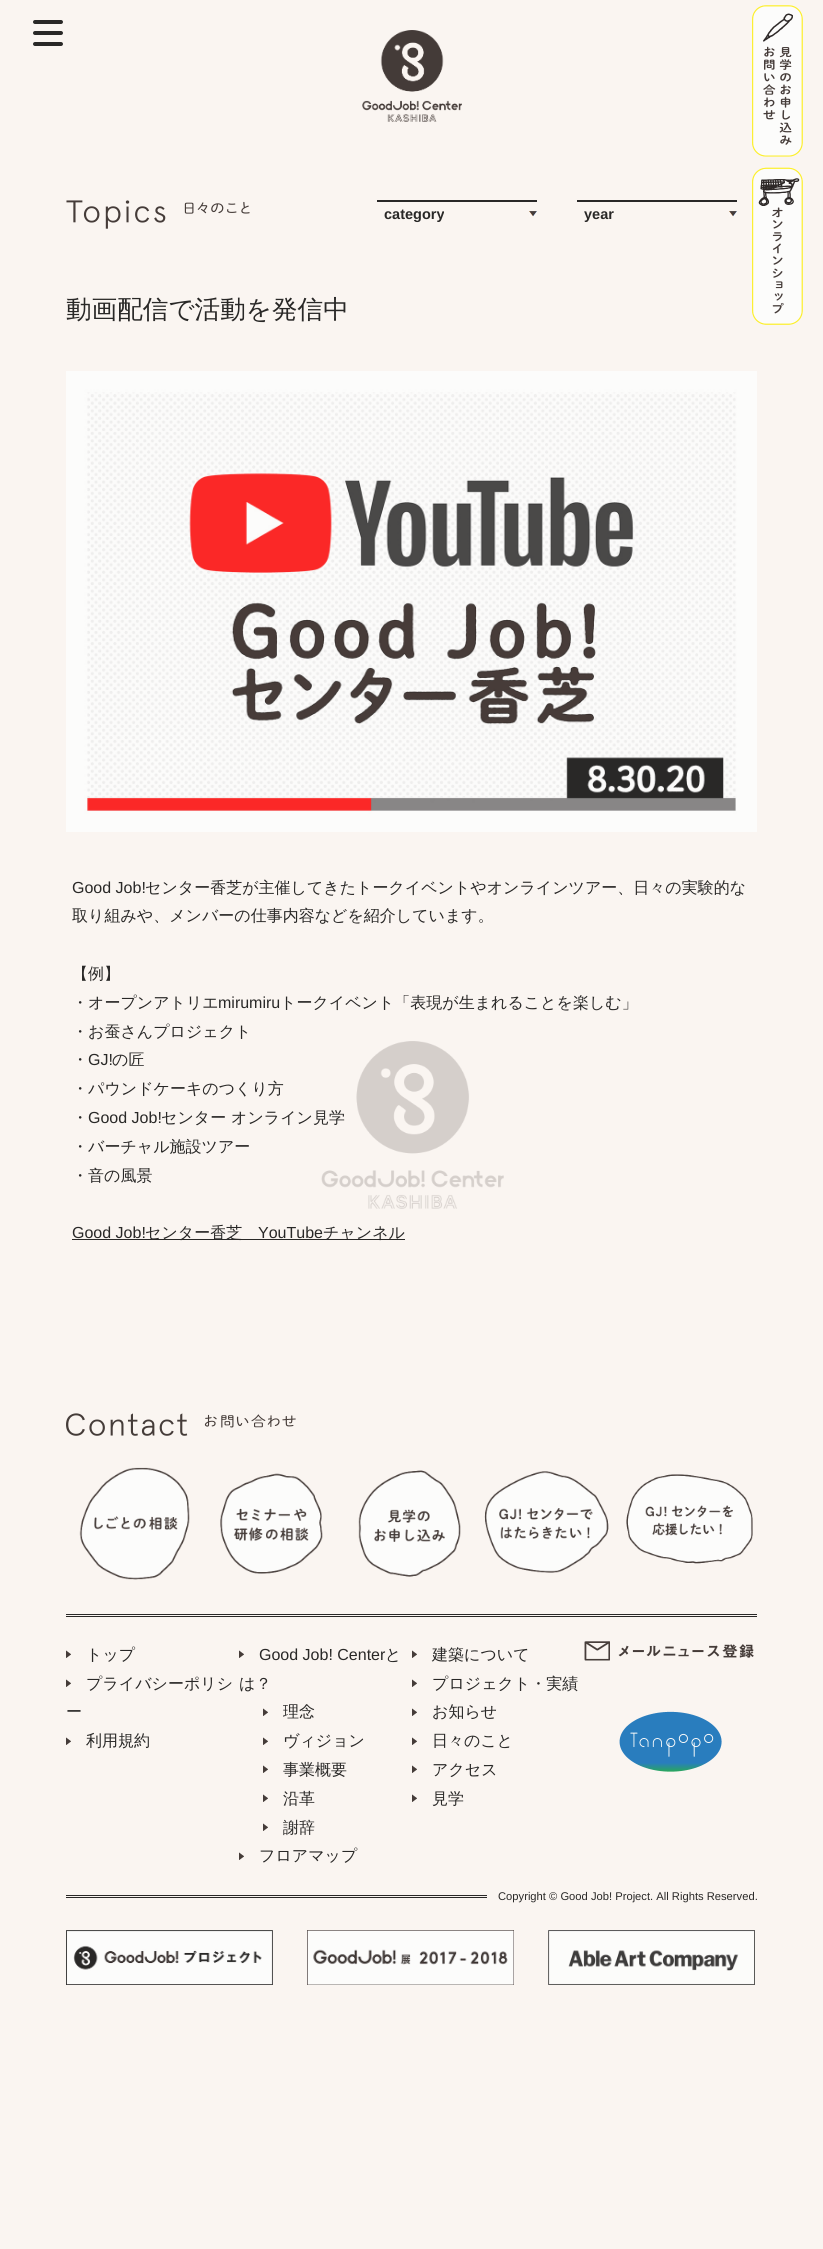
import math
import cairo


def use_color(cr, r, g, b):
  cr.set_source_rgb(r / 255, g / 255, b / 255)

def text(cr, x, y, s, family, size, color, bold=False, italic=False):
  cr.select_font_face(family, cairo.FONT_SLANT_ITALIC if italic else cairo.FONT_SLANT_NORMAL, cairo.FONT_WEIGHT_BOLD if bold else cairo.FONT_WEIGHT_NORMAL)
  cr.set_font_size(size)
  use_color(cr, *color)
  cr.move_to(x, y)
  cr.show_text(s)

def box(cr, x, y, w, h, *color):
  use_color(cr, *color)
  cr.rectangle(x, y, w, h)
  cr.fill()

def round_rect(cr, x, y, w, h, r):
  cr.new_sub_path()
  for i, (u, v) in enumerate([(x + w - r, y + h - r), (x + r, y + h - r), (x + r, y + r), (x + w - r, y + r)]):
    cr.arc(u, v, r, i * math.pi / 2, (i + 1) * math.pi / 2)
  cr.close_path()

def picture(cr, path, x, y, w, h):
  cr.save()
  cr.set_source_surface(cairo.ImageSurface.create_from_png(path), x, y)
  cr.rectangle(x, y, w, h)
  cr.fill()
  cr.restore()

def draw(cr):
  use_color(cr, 250, 245, 241)
  cr.paint()
  use_color(cr, 41, 40, 39)
  round_rect(cr, 33, 20, 30, 4, 2)
  cr.fill()
  round_rect(cr, 33, 31, 30, 4, 2)
  cr.fill()
  round_rect(cr, 33, 42, 30, 4, 2)
  cr.fill()
  picture(cr, "img_01.png", 362, 30, 100, 92)
  picture(cr, "img_02.png", 752, 5, 51, 152)
  picture(cr, "img_03.png", 752, 167, 51, 158)
  picture(cr, "img_04.png", 66, 200, 184, 29)
  box(cr, 377, 200, 160, 2, 41, 40, 39)
  picture(cr, "img_05.png", 529, 211, 8, 6)
  box(cr, 577, 200, 160, 2, 41, 40, 39)
  picture(cr, "img_05.png", 729, 211, 8, 6)
  picture(cr, "img_06.png", 66, 371, 691, 461)
  box(cr, 72, 1239, 333, 1, 41, 40, 39)
  picture(cr, "img_07.png", 66, 1413, 230, 23)
  picture(cr, "img_08.png", 79, 1467, 111, 113)
  picture(cr, "img_09.png", 220, 1473, 103, 101)
  picture(cr, "img_10.png", 358, 1470, 103, 107)
  picture(cr, "img_11.png", 484, 1471, 125, 102)
  picture(cr, "img_12.png", 626, 1474, 127, 90)
  box(cr, 66, 1614, 691, 1, 41, 40, 39)
  box(cr, 66, 1616, 691, 1, 41, 40, 39)
  box(cr, 66, 1895, 421, 1, 41, 40, 39)
  box(cr, 66, 1897, 421, 1, 41, 40, 39)
  picture(cr, "img_13.png", 66, 1650, 5, 8)
  picture(cr, "img_13.png", 66, 1679, 5, 8)
  picture(cr, "img_13.png", 66, 1737, 5, 8)
  picture(cr, "img_13.png", 239, 1650, 5, 8)
  picture(cr, "img_13.png", 263, 1708, 5, 8)
  picture(cr, "img_13.png", 263, 1737, 5, 8)
  picture(cr, "img_13.png", 263, 1765, 5, 8)
  picture(cr, "img_13.png", 263, 1794, 5, 8)
  picture(cr, "img_13.png", 263, 1823, 5, 8)
  picture(cr, "img_13.png", 239, 1852, 5, 8)
  picture(cr, "img_13.png", 412, 1650, 5, 8)
  picture(cr, "img_13.png", 412, 1679, 5, 8)
  picture(cr, "img_13.png", 412, 1708, 5, 8)
  picture(cr, "img_13.png", 412, 1737, 5, 8)
  picture(cr, "img_13.png", 412, 1765, 5, 8)
  picture(cr, "img_13.png", 412, 1794, 5, 8)
  picture(cr, "img_14.png", 584, 1641, 170, 20)
  picture(cr, "img_15.png", 619, 1711, 103, 61)
  picture(cr, "img_16.png", 66, 1930, 207, 55)
  picture(cr, "img_17.png", 307, 1930, 207, 55)
  picture(cr, "img_18.png", 548, 1930, 207, 55)
  text(cr, 384, 219, "category", "Liberation Sans", 14.5, (41, 40, 39), bold=True)
  text(cr, 584, 219, "year", "Liberation Sans", 14.5, (41, 40, 39), bold=True)
  text(cr, 66, 318, "動画配信で活動を発信中", "WenQuanYi Zen Hei Medium", 25.6, (41, 40, 39))
  text(cr, 72, 893, "Good Job!", "Liberation Sans", 16, (41, 40, 39))
  text(cr, 145, 893, "センター香芝が主催してきたトークイベントやオンラインツアー、日々の実験的な", "WenQuanYi Zen Hei Medium", 16, (41, 40, 39))
  text(cr, 72, 921, "取り組みや、メンバーの仕事内容などを紹介しています。", "WenQuanYi Zen Hei Medium", 16, (41, 40, 39))
  text(cr, 72, 979, "【例】", "WenQuanYi Zen Hei Medium", 16, (41, 40, 39))
  text(cr, 72, 1008, "・オープンアトリエ", "WenQuanYi Zen Hei Medium", 16, (41, 40, 39))
  text(cr, 218, 1008, "mirumiru", "Liberation Sans", 16, (41, 40, 39))
  text(cr, 280, 1008, "トークイベント「表現が生まれることを楽しむ」", "WenQuanYi Zen Hei Medium", 16, (41, 40, 39))
  text(cr, 72, 1037, "・お蚕さんプロジェクト", "WenQuanYi Zen Hei Medium", 16, (41, 40, 39))
  text(cr, 72, 1065, "・", "WenQuanYi Zen Hei Medium", 16, (41, 40, 39))
  text(cr, 88, 1065, "GJ!", "Liberation Sans", 16, (41, 40, 39))
  text(cr, 112, 1065, "の匠", "WenQuanYi Zen Hei Medium", 16, (41, 40, 39))
  text(cr, 72, 1094, "・パウンドケーキのつくり方", "WenQuanYi Zen Hei Medium", 16, (41, 40, 39))
  text(cr, 72, 1123, "・", "WenQuanYi Zen Hei Medium", 16, (41, 40, 39))
  text(cr, 88, 1123, "Good Job!", "Liberation Sans", 16, (41, 40, 39))
  text(cr, 161, 1123, "センター", "WenQuanYi Zen Hei Medium", 16, (41, 40, 39))
  text(cr, 231, 1123, "オンライン見学", "WenQuanYi Zen Hei Medium", 16, (41, 40, 39))
  text(cr, 72, 1152, "・バーチャル施設ツアー", "WenQuanYi Zen Hei Medium", 16, (41, 40, 39))
  text(cr, 72, 1181, "・音の風景", "WenQuanYi Zen Hei Medium", 16, (41, 40, 39))
  text(cr, 72, 1238, "Good Job!", "Liberation Sans", 16, (41, 40, 39))
  text(cr, 145, 1238, "センター香芝", "WenQuanYi Zen Hei Medium", 16, (41, 40, 39))
  text(cr, 258, 1238, "YouTube", "Liberation Sans", 16, (41, 40, 39))
  text(cr, 323, 1238, "チャンネル", "WenQuanYi Zen Hei Medium", 16, (41, 40, 39))
  text(cr, 86, 1660, "トップ", "WenQuanYi Zen Hei Medium", 16, (41, 40, 39))
  text(cr, 86, 1689, "プライバシーポリシ", "WenQuanYi Zen Hei Medium", 16, (41, 40, 39))
  text(cr, 66, 1717, "ー", "WenQuanYi Zen Hei Medium", 16, (41, 40, 39))
  text(cr, 86, 1746, "利用規約", "WenQuanYi Zen Hei Medium", 16, (41, 40, 39))
  text(cr, 259, 1660, "Good Job! Center", "Liberation Sans", 16, (41, 40, 39))
  text(cr, 385, 1660, "と", "WenQuanYi Zen Hei Medium", 16, (41, 40, 39))
  text(cr, 239, 1689, "は？", "WenQuanYi Zen Hei Medium", 16, (41, 40, 39))
  text(cr, 283, 1717, "理念", "WenQuanYi Zen Hei Medium", 16, (41, 40, 39))
  text(cr, 283, 1746, "ヴィジョン", "WenQuanYi Zen Hei Medium", 16, (41, 40, 39))
  text(cr, 283, 1775, "事業概要", "WenQuanYi Zen Hei Medium", 16, (41, 40, 39))
  text(cr, 283, 1804, "沿革", "WenQuanYi Zen Hei Medium", 16, (41, 40, 39))
  text(cr, 283, 1833, "謝辞", "WenQuanYi Zen Hei Medium", 16, (41, 40, 39))
  text(cr, 259, 1861, "フロアマップ", "WenQuanYi Zen Hei Medium", 16, (41, 40, 39))
  text(cr, 432, 1660, "建築について", "WenQuanYi Zen Hei Medium", 16, (41, 40, 39))
  text(cr, 432, 1689, "プロジェクト・実績", "WenQuanYi Zen Hei Medium", 16, (41, 40, 39))
  text(cr, 432, 1717, "お知らせ", "WenQuanYi Zen Hei Medium", 16, (41, 40, 39))
  text(cr, 432, 1746, "日々のこと", "WenQuanYi Zen Hei Medium", 16, (41, 40, 39))
  text(cr, 432, 1775, "アクセス", "WenQuanYi Zen Hei Medium", 16, (41, 40, 39))
  text(cr, 432, 1804, "見学", "WenQuanYi Zen Hei Medium", 16, (41, 40, 39))
  text(cr, 498, 1900, "Copyright © Good Job! Project. All Rights Reserved.", "Liberation Sans", 11.2, (41, 40, 39))
  picture(cr, "img_19.png", 321, 1041, 183, 168)


surface = cairo.ImageSurface(cairo.FORMAT_RGB24, 823, 2249)
cr = cairo.Context(surface)
options = cairo.FontOptions()
options.set_hint_metrics(cairo.HINT_METRICS_OFF)
options.set_hint_style(cairo.HINT_STYLE_NONE)
cr.set_font_options(options)
cr.set_miter_limit(4)
draw(cr)
surface.write_to_png("out.png")
